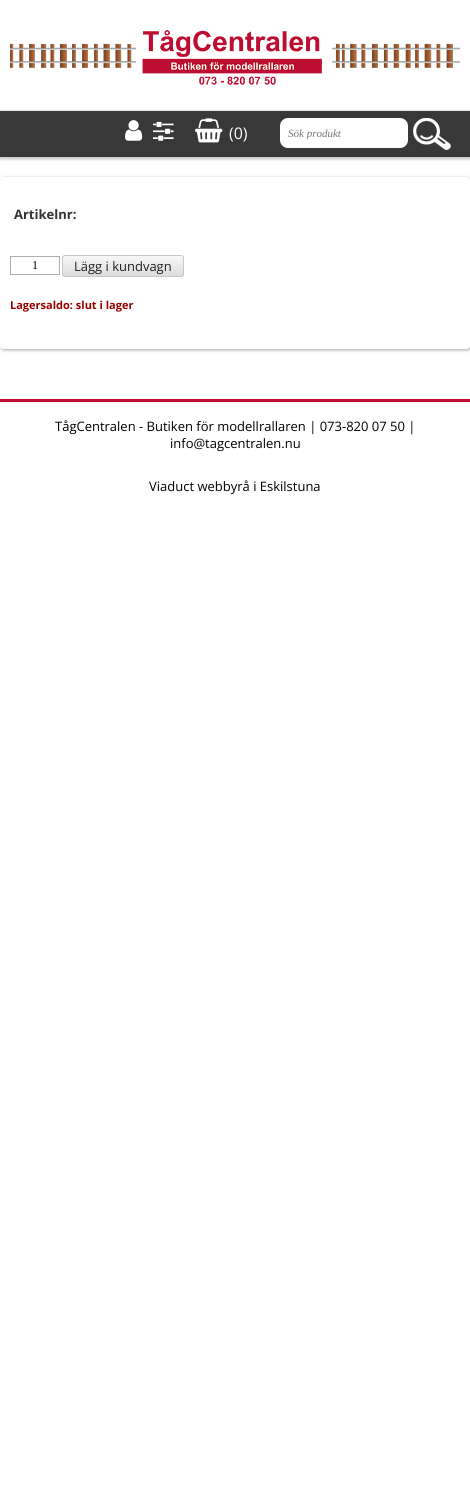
import math
import cairo


def use_color(cr, r, g, b):
  cr.set_source_rgb(r / 255, g / 255, b / 255)

def text(cr, x, y, s, family, size, color, bold=False, italic=False):
  cr.select_font_face(family, cairo.FONT_SLANT_ITALIC if italic else cairo.FONT_SLANT_NORMAL, cairo.FONT_WEIGHT_BOLD if bold else cairo.FONT_WEIGHT_NORMAL)
  cr.set_font_size(size)
  use_color(cr, *color)
  cr.move_to(x, y)
  cr.show_text(s)

def box(cr, x, y, w, h, *color):
  use_color(cr, *color)
  cr.rectangle(x, y, w, h)
  cr.fill()

def round_rect(cr, x, y, w, h, r):
  cr.new_sub_path()
  for i, (u, v) in enumerate([(x + w - r, y + h - r), (x + r, y + h - r), (x + r, y + r), (x + w - r, y + r)]):
    cr.arc(u, v, r, i * math.pi / 2, (i + 1) * math.pi / 2)
  cr.close_path()

def shadow(cr, x, y, w, h, r, blur, alpha):
  cr.push_group_with_content(cairo.CONTENT_ALPHA)
  cr.set_operator(cairo.OPERATOR_SOURCE)
  for i in range(15, -16, -2):
    e = blur * i / 6
    if min(w, h) + 2 * e > 0:
      cr.set_source_rgba(0, 0, 0, alpha * math.erfc((i - 1) / 8.5) / 2)
      round_rect(cr, x - e, y - e, w + 2 * e, h + 2 * e, max(0, min(r + e + blur * .6, min(w, h) / 2 + e)))
      cr.fill()
  cr.mask(cr.pop_group())

def picture(cr, path, x, y, w, h):
  cr.save()
  cr.set_source_surface(cairo.ImageSurface.create_from_png(path), x, y)
  cr.rectangle(x, y, w, h)
  cr.fill()
  cr.restore()

def draw(cr):
  use_color(cr, 255, 255, 255)
  cr.paint()
  picture(cr, "img_01.png", 10, 30, 450, 55)
  use_color(cr, 0, 0, 0)
  shadow(cr, 0, 111, 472, 48, 0, 1.5, 0.25)
  box(cr, 0, 111, 470, 46, 56, 56, 56)
  picture(cr, "img_02.png", 125, 120, 18, 21)
  picture(cr, "img_03.png", 153, 121, 21, 20)
  picture(cr, "img_04.png", 195, 118, 28, 25)
  use_color(cr, 255, 255, 255)
  round_rect(cr, 280, 118, 128, 30, 8)
  cr.fill()
  picture(cr, "img_05.png", 413, 118, 38, 32)
  use_color(cr, 0, 0, 0)
  shadow(cr, 1, 178, 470, 172, 3, 1.5, 0.35)
  use_color(cr, 255, 255, 255)
  round_rect(cr, 0, 177, 470, 172, 3)
  cr.fill()
  cr.rectangle(10.5, 256.5, 49, 18)
  use_color(cr, 175, 175, 175)
  cr.set_line_width(1)
  cr.stroke()
  cr.save()
  round_rect(cr, 62, 255, 122, 22, 3)
  cr.clip()
  gradient = cairo.LinearGradient(123, 256, 123, 276)
  gradient.add_color_stop_rgba(0, 0.969, 0.969, 0.969, 1)
  gradient.add_color_stop_rgba(1, 0.867, 0.867, 0.867, 1)
  cr.set_source(gradient)
  cr.rectangle(62, 256, 122, 20)
  cr.fill()
  cr.restore()
  round_rect(cr, 62.5, 255.5, 121, 21, 2.5)
  use_color(cr, 199, 199, 199)
  cr.stroke()
  box(cr, 0, 399, 470, 3, 189, 13, 49)
  text(cr, 229, 139, "(0)", "Open Sans", 16, (255, 255, 255))
  cr.save()
  cr.rectangle(288, 127, 120, 12)
  cr.clip()
  text(cr, 288, 137, "Sök produkt", "Liberation Serif", 11, (117, 117, 117), italic=True)
  cr.restore()
  text(cr, 14, 219, "Artikelnr:", "Open Sans", 13, (51, 51, 51), bold=True)
  text(cr, 32, 269, "1", "Liberation Serif", 12, (0, 0, 0))
  text(cr, 74, 271, "Lägg i kundvagn", "Open Sans", 13, (34, 34, 34))
  text(cr, 10, 309, "Lagersaldo: slut i lager", "Open Sans", 11, (153, 0, 0), bold=True)
  text(cr, 55, 431, "TågCentralen - Butiken för modellrallaren | 073-820 07 50 |", "Open Sans", 13, (0, 0, 0))
  text(cr, 170, 448, "info@tagcentralen.nu", "Open Sans", 13, (0, 0, 0))
  text(cr, 149, 491, "Viaduct webbyrå i Eskilstuna", "Open Sans", 13, (0, 0, 0))


surface = cairo.ImageSurface(cairo.FORMAT_RGB24, 470, 1498)
cr = cairo.Context(surface)
options = cairo.FontOptions()
options.set_hint_metrics(cairo.HINT_METRICS_OFF)
options.set_hint_style(cairo.HINT_STYLE_NONE)
cr.set_font_options(options)
cr.set_miter_limit(4)
draw(cr)
surface.write_to_png("out.png")
